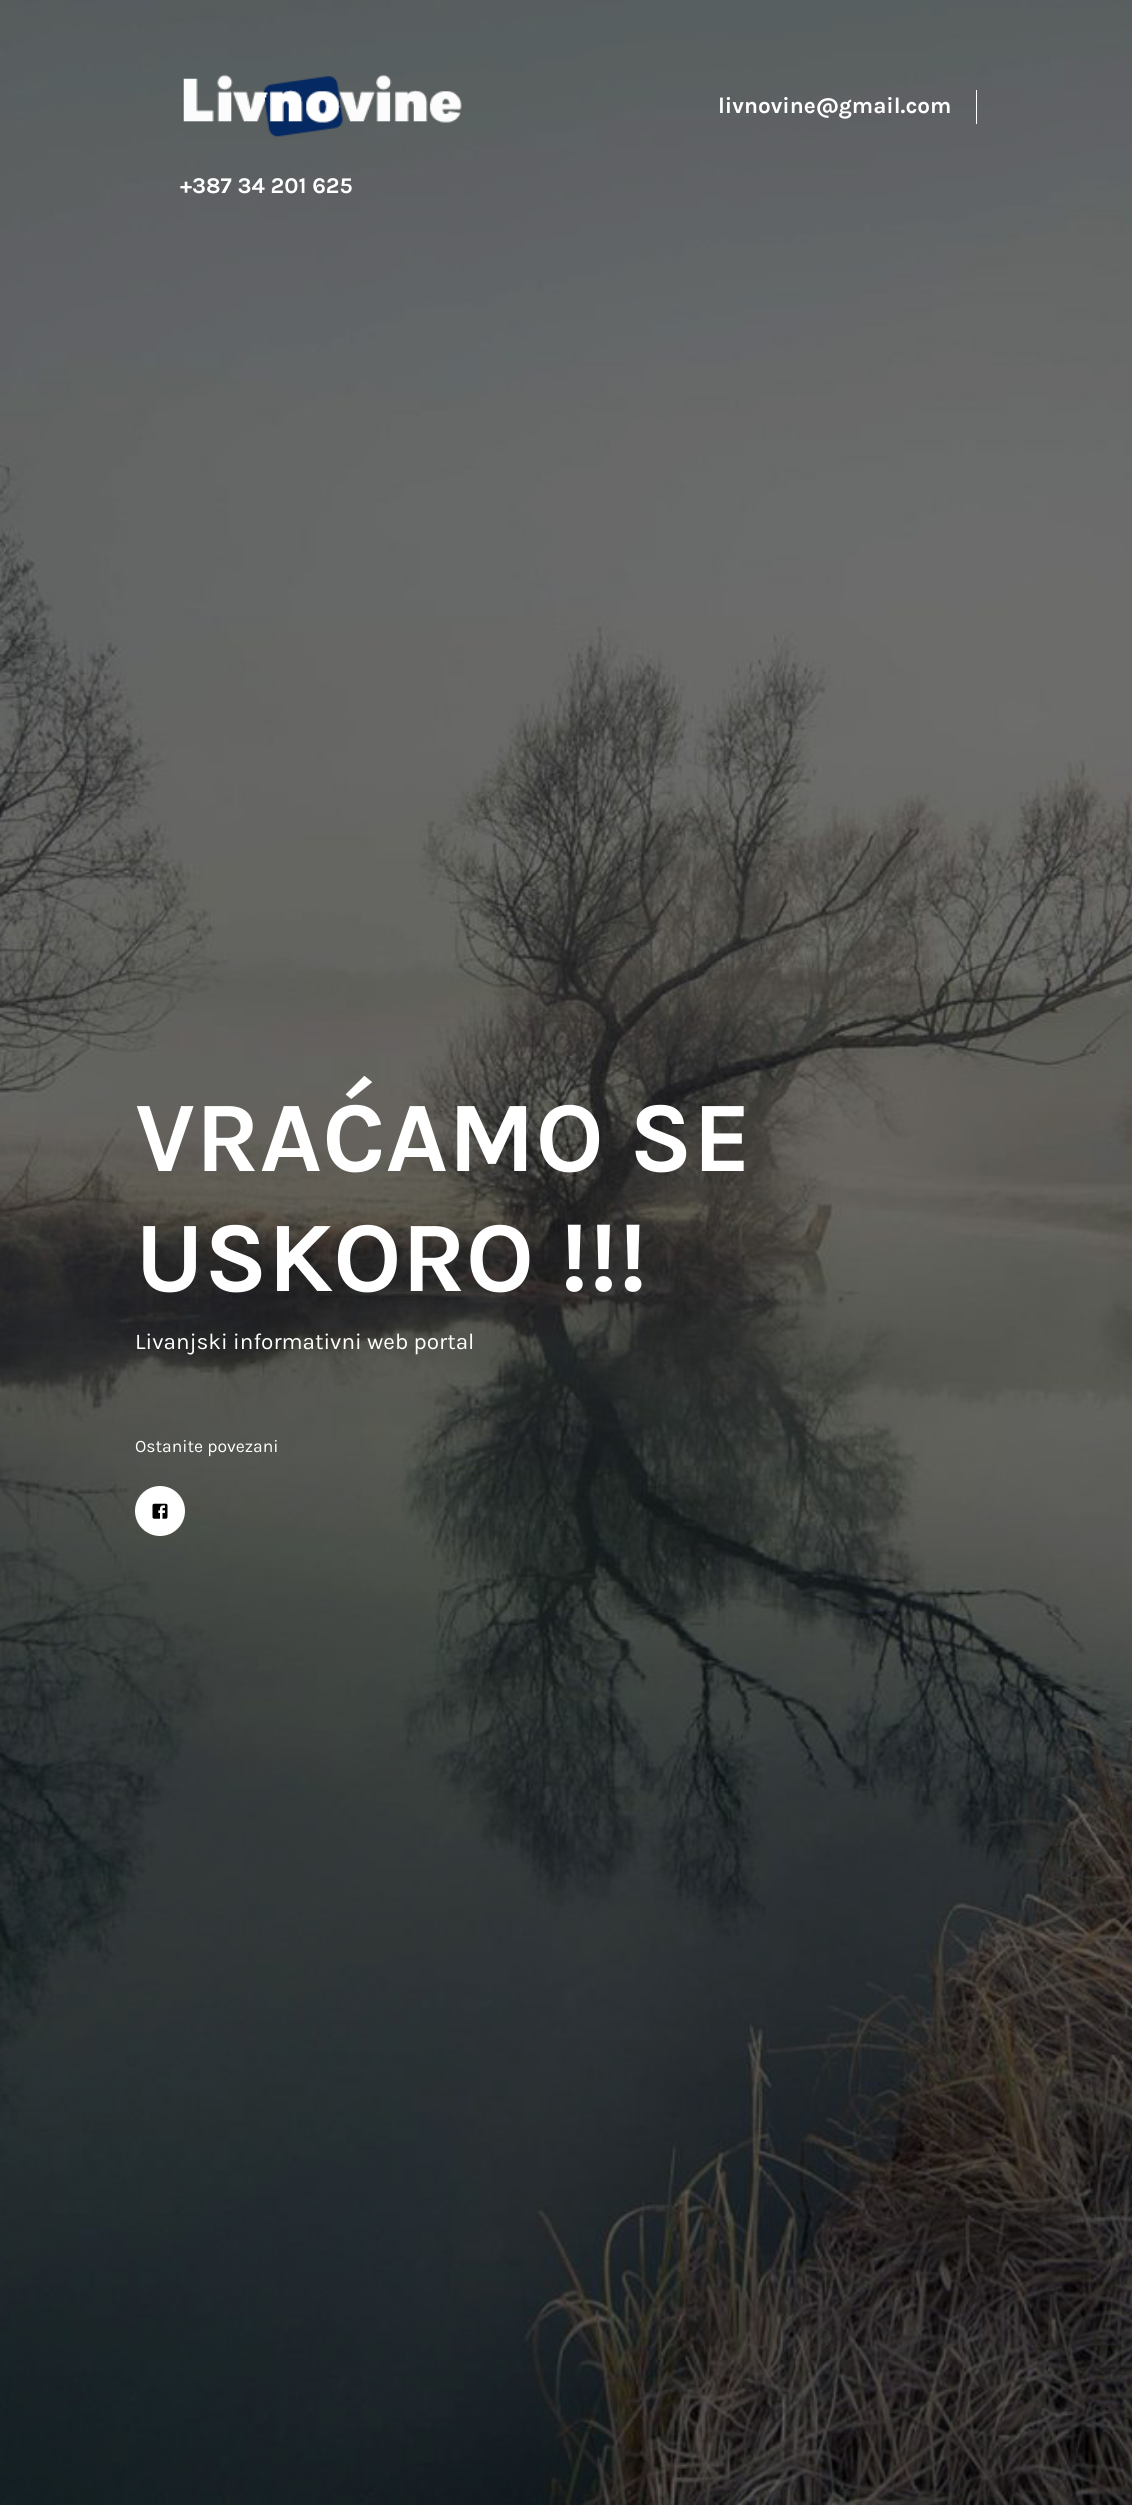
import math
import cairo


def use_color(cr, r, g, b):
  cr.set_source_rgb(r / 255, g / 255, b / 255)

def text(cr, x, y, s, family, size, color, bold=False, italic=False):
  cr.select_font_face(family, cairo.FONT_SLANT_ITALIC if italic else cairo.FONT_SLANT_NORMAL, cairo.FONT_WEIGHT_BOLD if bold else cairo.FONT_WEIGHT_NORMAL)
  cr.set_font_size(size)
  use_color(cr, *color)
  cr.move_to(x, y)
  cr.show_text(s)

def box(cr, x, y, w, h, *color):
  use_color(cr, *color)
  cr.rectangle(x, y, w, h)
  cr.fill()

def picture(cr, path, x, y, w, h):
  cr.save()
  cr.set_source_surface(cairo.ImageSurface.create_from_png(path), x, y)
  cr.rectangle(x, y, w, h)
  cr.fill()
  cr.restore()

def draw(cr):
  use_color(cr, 255, 255, 255)
  cr.paint()
  picture(cr, "img_01.png", 0, 0, 1132, 2505)
  picture(cr, "img_02.png", 183, 74, 279, 63)
  box(cr, 976, 90, 1, 34, 255, 255, 255)
  cr.arc(160, 1511, 25, 0, 2 * math.pi)
  cr.fill()
  picture(cr, "img_03.png", 152, 1503, 16, 16)
  text(cr, 718, 113, "livnovine@gmail.com", "Karla", 22.5, (255, 255, 255), bold=True)
  text(cr, 180, 193, "+387 34 201 625", "Karla", 22.5, (255, 255, 255), bold=True)
  text(cr, 135, 1171, "VRAĆAMO SE", "Karla", 100, (255, 255, 255), bold=True)
  text(cr, 135, 1291, "USKORO !!!", "Karla", 100, (255, 255, 255), bold=True)
  text(cr, 135, 1349, "Livanjski informativni web portal", "Karla", 22.5, (255, 255, 255))
  text(cr, 135, 1452, "Ostanite povezani", "Karla", 17.5, (255, 255, 255))


surface = cairo.ImageSurface(cairo.FORMAT_RGB24, 1132, 2505)
cr = cairo.Context(surface)
options = cairo.FontOptions()
options.set_hint_metrics(cairo.HINT_METRICS_OFF)
options.set_hint_style(cairo.HINT_STYLE_NONE)
cr.set_font_options(options)
cr.set_miter_limit(4)
draw(cr)
surface.write_to_png("out.png")
